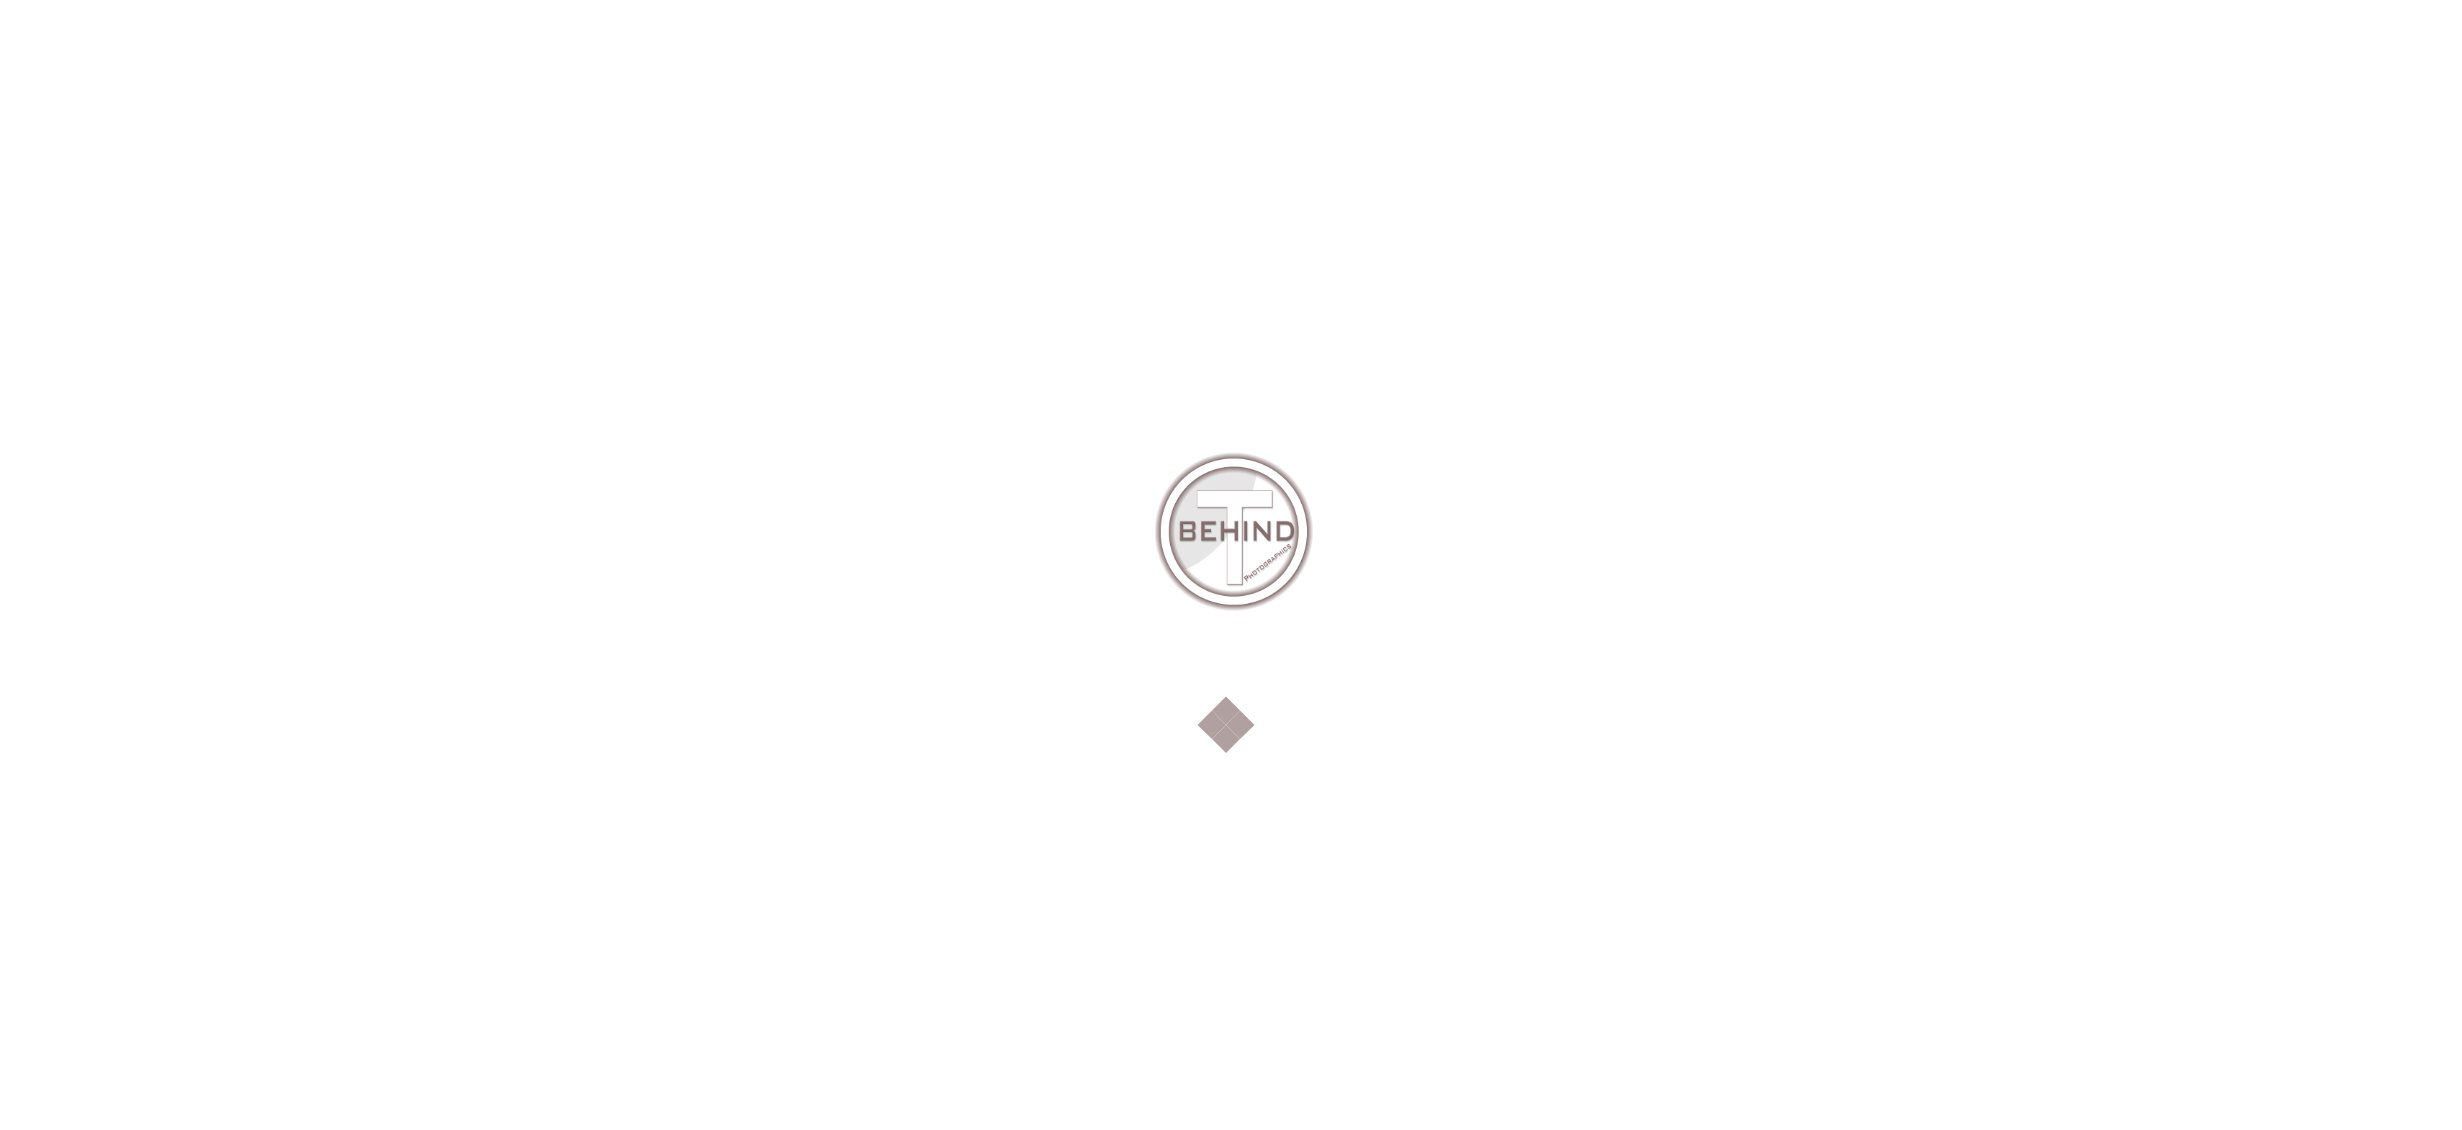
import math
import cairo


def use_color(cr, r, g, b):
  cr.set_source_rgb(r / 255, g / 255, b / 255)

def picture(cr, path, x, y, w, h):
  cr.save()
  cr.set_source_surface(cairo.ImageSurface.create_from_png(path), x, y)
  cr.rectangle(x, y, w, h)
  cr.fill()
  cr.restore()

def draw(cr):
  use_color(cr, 255, 255, 255)
  cr.paint()
  picture(cr, "img_01.png", 1155, 452, 158, 159)
  use_color(cr, 176, 160, 160)
  cr.new_path()
  cr.move_to(1226, 696.5)
  cr.line_to(1240, 710.5)
  cr.line_to(1226, 725)
  cr.line_to(1212, 710.5)
  cr.close_path()
  cr.fill()
  cr.new_path()
  cr.move_to(1254.5, 725)
  cr.line_to(1240, 739)
  cr.line_to(1226, 725)
  cr.line_to(1240, 710.5)
  cr.close_path()
  cr.move_to(1197.5, 725)
  cr.line_to(1212, 710.5)
  cr.line_to(1226, 725)
  cr.line_to(1212, 739)
  cr.close_path()
  cr.fill()
  cr.new_path()
  cr.move_to(1226, 753)
  cr.line_to(1212, 739)
  cr.line_to(1226, 725)
  cr.line_to(1240, 739)
  cr.close_path()
  cr.fill()


surface = cairo.ImageSurface(cairo.FORMAT_RGB24, 2462, 1130)
cr = cairo.Context(surface)
options = cairo.FontOptions()
options.set_hint_metrics(cairo.HINT_METRICS_OFF)
options.set_hint_style(cairo.HINT_STYLE_NONE)
cr.set_font_options(options)
cr.set_miter_limit(4)
draw(cr)
surface.write_to_png("out.png")
